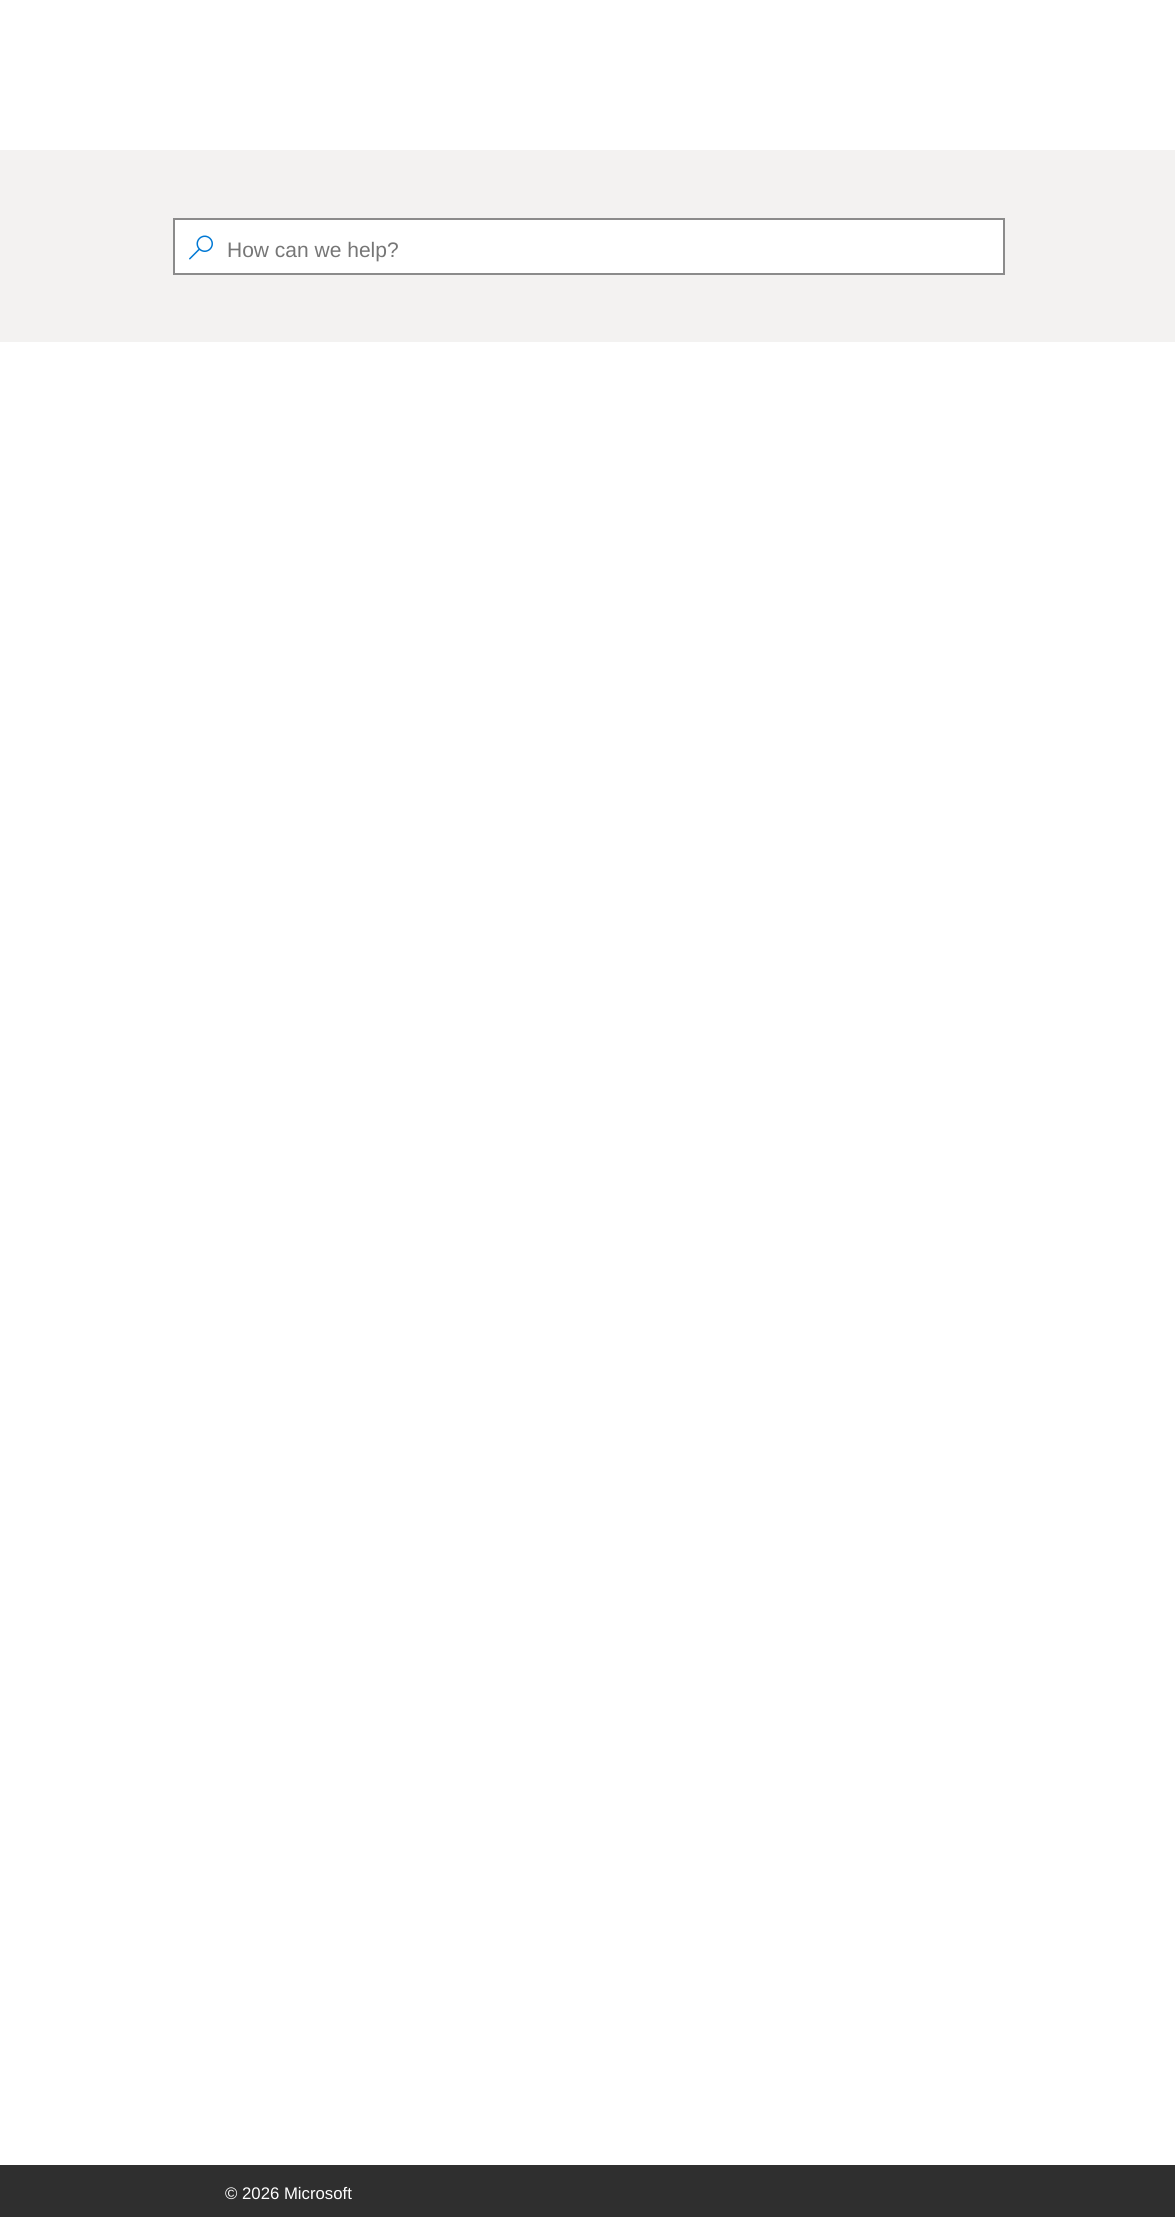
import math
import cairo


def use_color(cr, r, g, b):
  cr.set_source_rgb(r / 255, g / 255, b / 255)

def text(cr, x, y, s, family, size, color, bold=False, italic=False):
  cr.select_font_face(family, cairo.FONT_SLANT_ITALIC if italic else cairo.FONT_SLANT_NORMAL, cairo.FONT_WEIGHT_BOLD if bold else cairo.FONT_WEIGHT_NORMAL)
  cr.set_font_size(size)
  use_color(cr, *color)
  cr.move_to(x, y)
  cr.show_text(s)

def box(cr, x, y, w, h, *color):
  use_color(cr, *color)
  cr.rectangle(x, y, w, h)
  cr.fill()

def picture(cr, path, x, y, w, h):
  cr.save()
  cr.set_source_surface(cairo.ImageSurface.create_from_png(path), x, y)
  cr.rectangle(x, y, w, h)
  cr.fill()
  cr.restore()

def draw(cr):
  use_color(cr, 255, 255, 255)
  cr.paint()
  box(cr, 0, 150, 1175, 192, 243, 242, 241)
  use_color(cr, 255, 255, 255)
  cr.rectangle(174, 219, 830, 55)
  cr.fill_preserve()
  use_color(cr, 139, 139, 139)
  cr.stroke()
  picture(cr, "img_01.png", 189, 235, 24, 25)
  box(cr, 0, 2165, 1175, 52, 47, 47, 47)
  text(cr, 227, 257, "How can we help?", "Liberation Sans", 21, (118, 118, 118))
  text(cr, 225, 2199, "© 2026 Microsoft", "Liberation Sans", 16.75, (255, 255, 255))


surface = cairo.ImageSurface(cairo.FORMAT_RGB24, 1175, 2217)
cr = cairo.Context(surface)
options = cairo.FontOptions()
options.set_hint_metrics(cairo.HINT_METRICS_OFF)
options.set_hint_style(cairo.HINT_STYLE_NONE)
cr.set_font_options(options)
cr.set_miter_limit(4)
draw(cr)
surface.write_to_png("out.png")
